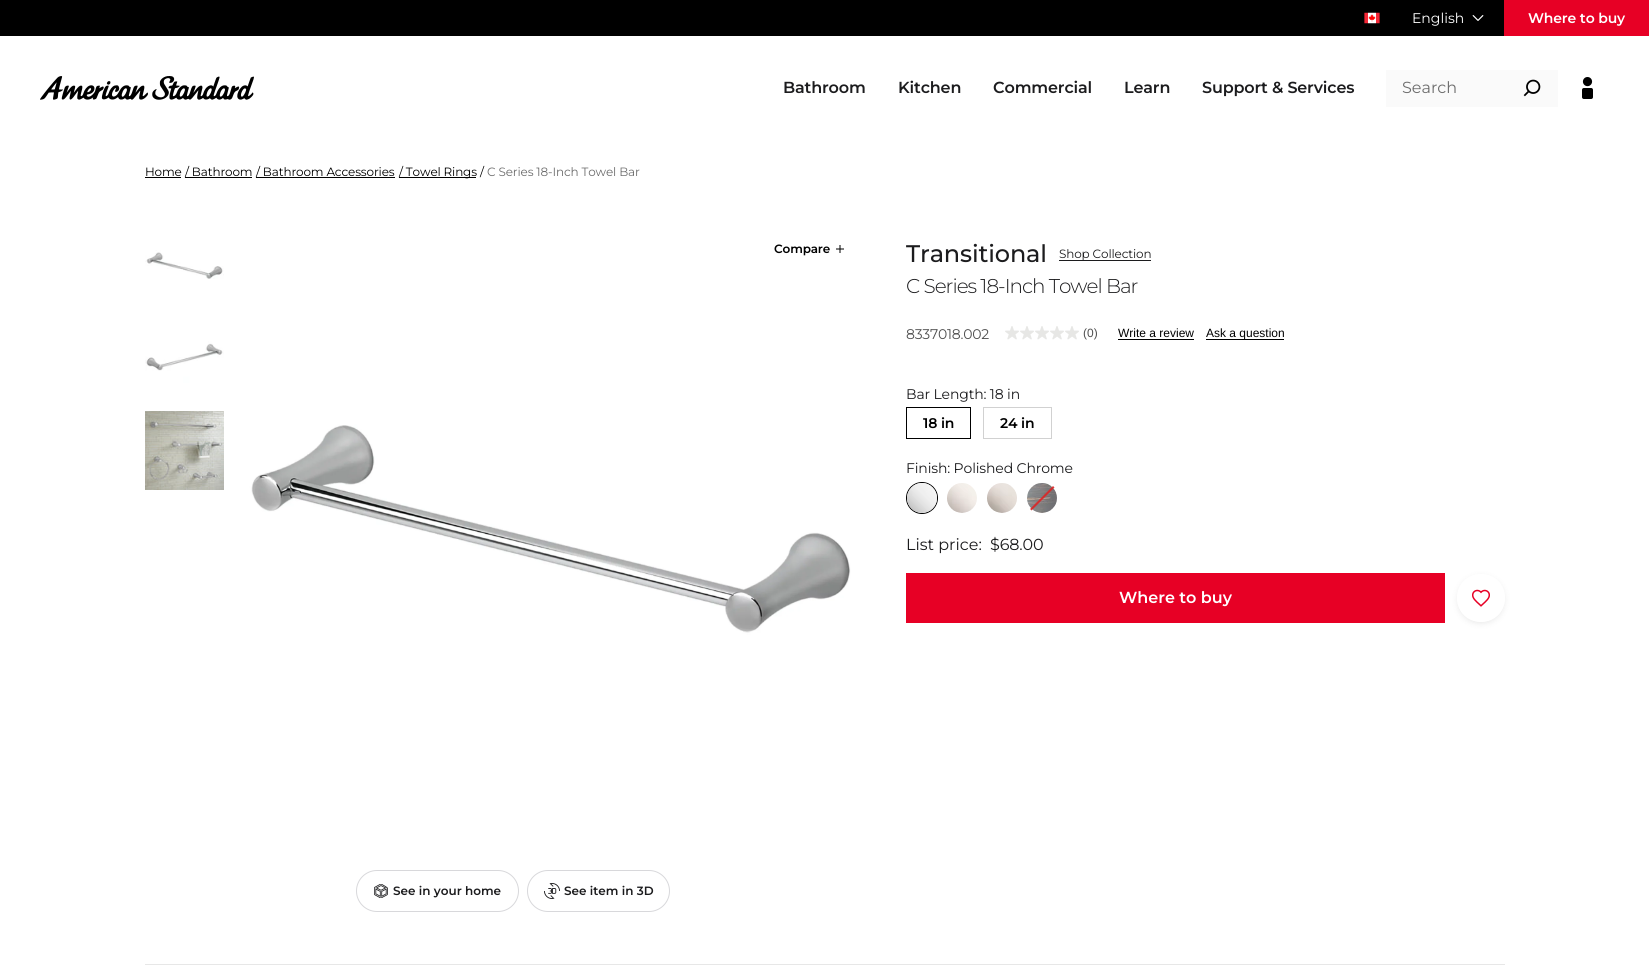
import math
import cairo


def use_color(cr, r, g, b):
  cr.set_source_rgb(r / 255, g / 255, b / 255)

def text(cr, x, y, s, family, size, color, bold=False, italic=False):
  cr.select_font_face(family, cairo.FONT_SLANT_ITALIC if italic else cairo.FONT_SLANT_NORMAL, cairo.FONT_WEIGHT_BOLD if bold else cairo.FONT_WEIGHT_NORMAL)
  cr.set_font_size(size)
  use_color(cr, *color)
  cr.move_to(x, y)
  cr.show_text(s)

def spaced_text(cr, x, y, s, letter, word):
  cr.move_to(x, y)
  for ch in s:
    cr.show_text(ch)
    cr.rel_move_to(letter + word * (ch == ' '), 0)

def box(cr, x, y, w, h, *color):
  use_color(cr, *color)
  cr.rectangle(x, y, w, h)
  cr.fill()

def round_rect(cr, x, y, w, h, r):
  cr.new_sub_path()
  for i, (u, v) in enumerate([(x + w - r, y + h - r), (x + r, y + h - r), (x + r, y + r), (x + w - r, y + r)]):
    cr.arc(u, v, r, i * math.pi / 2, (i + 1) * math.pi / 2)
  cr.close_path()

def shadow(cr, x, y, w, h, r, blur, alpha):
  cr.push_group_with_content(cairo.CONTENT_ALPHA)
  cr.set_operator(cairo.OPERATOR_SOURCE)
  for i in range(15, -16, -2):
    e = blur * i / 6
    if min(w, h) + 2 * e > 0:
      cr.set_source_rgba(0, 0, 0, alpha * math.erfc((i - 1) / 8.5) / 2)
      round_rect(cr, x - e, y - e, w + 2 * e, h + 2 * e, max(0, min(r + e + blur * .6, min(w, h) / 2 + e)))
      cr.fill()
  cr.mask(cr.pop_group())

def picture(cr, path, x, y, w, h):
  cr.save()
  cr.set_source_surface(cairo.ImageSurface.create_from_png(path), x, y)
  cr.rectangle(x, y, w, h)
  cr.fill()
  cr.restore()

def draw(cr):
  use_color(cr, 255, 255, 255)
  cr.paint()
  box(cr, 0, 0, 1504, 36, 0, 0, 0)
  picture(cr, "img_01.png", 1364, 12, 16, 12)
  picture(cr, "img_02.png", 1472, 15, 12, 6)
  box(cr, 1504, 0, 145, 36, 231, 0, 37)
  picture(cr, "img_03.png", 40, 76, 214, 24)
  box(cr, 1386, 70, 172, 37, 250, 250, 250)
  picture(cr, "img_04.png", 1523, 79, 18, 18)
  picture(cr, "img_05.png", 1582, 77, 11, 22)
  box(cr, 145, 177, 36, 1, 0, 0, 0)
  box(cr, 185, 177, 67, 1, 0, 0, 0)
  box(cr, 256, 177, 139, 1, 0, 0, 0)
  box(cr, 399, 177, 77, 1, 0, 0, 0)
  picture(cr, "img_06.png", 145, 228, 79, 79)
  picture(cr, "img_07.png", 145, 319, 79, 80)
  picture(cr, "img_08.png", 145, 411, 79, 79)
  picture(cr, "img_09.png", 236, 228, 630, 630)
  picture(cr, "img_10.png", 836, 245, 8, 8)
  round_rect(cr, 356.5, 870.5, 162, 41, 20.5)
  use_color(cr, 216, 216, 219)
  cr.set_line_width(1)
  cr.stroke()
  picture(cr, "img_11.png", 374, 884, 14, 14)
  round_rect(cr, 527.5, 870.5, 142, 41, 20.5)
  cr.stroke()
  picture(cr, "img_12.png", 544, 883, 16, 16)
  box(cr, 1059, 260, 92, 1, 28, 28, 30)
  picture(cr, "img_13.png", 1005, 326, 14, 14)
  picture(cr, "img_13.png", 1020, 326, 14, 14)
  picture(cr, "img_13.png", 1035, 326, 14, 14)
  picture(cr, "img_13.png", 1050, 326, 14, 14)
  picture(cr, "img_13.png", 1065, 326, 14, 14)
  box(cr, 1118, 339, 76, 1, 0, 0, 0)
  box(cr, 1206, 339, 78, 1, 0, 0, 0)
  cr.rectangle(906.5, 407.5, 64, 31)
  cr.stroke()
  cr.rectangle(983.5, 407.5, 68, 31)
  use_color(cr, 209, 209, 209)
  cr.stroke()
  cr.arc(922, 498, 15.5, 0, 2 * math.pi)
  use_color(cr, 0, 0, 0)
  cr.stroke()
  picture(cr, "img_14.png", 907, 483, 30, 30)
  picture(cr, "img_15.png", 947, 483, 30, 30)
  picture(cr, "img_16.png", 987, 483, 30, 30)
  picture(cr, "img_17.png", 1027, 483, 30, 30)
  cr.set_source_rgba(0.863, 0.149, 0.149, 0.9)
  cr.new_path()
  cr.move_to(1031.5, 510.5)
  cr.line_to(1030, 509)
  cr.line_to(1053, 486)
  cr.line_to(1054.5, 487.5)
  cr.close_path()
  cr.fill()
  box(cr, 906, 573, 539, 50, 231, 0, 37)
  cr.save()
  cr.set_fill_rule(cairo.FILL_RULE_EVEN_ODD)
  cr.new_path()
  cr.move_to(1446, 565)
  cr.line_to(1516, 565)
  cr.line_to(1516, 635)
  cr.line_to(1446, 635)
  cr.close_path()
  cr.move_to(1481, 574)
  cr.curve_to(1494.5, 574, 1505, 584.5, 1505, 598)
  cr.curve_to(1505, 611.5, 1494.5, 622, 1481, 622)
  cr.curve_to(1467.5, 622, 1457, 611.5, 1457, 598)
  cr.curve_to(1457, 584.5, 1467.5, 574, 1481, 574)
  cr.close_path()
  cr.clip()
  use_color(cr, 0, 0, 0)
  shadow(cr, 1459, 578, 44, 44, 22, 4, 0.12)
  cr.restore()
  picture(cr, "img_18.png", 1472, 589, 18, 18)
  box(cr, 145, 964, 1360, 1, 231, 231, 231)
  text(cr, 1412, 23, "English", "Montserrat", 14, (255, 255, 255))
  cr.select_font_face("Montserrat SemiBold")
  spaced_text(cr, 1528, 23, "Where to buy", -0.15, 0)
  cr.set_font_size(16)
  use_color(cr, 28, 28, 30)
  spaced_text(cr, 783, 93, "Bathroom", -0.15, 0)
  spaced_text(cr, 898, 93, "Kitchen", -0.15, 0)
  spaced_text(cr, 993, 93, "Commercial", -0.15, 0)
  spaced_text(cr, 1124, 93, "Learn", -0.15, 0)
  spaced_text(cr, 1202, 93, "Support & Services", -0.15, 0)
  text(cr, 1402, 93, "Search", "Montserrat", 16, (109, 109, 109))
  cr.set_font_size(12)
  use_color(cr, 0, 0, 0)
  spaced_text(cr, 145, 176, "Home", -0.15, 0)
  spaced_text(cr, 185, 176, "/ Bathroom", -0.15, 0)
  spaced_text(cr, 256, 176, "/ Bathroom Accessories", -0.15, 0)
  spaced_text(cr, 399, 176, "/ Towel Rings", -0.15, 0)
  spaced_text(cr, 480, 176, "/", -0.15, 0)
  use_color(cr, 109, 109, 109)
  spaced_text(cr, 487, 176, "C Series 18-Inch Towel Bar", -0.15, 0)
  cr.select_font_face("Montserrat SemiBold")
  use_color(cr, 0, 0, 0)
  spaced_text(cr, 774, 253, "Compare", -0.15, 0)
  text(cr, 393, 895, "See in your home", "Montserrat SemiBold", 12, (28, 28, 30))
  text(cr, 564, 895, "See item in 3D", "Montserrat SemiBold", 12, (28, 28, 30))
  cr.select_font_face("Montserrat Medium")
  cr.set_font_size(24)
  spaced_text(cr, 906, 262, "Transitional", -0.15, 0)
  cr.select_font_face("Montserrat")
  cr.set_font_size(12)
  spaced_text(cr, 1059, 258, "Shop Collection", -0.15, 0)
  cr.select_font_face("Montserrat Light")
  cr.set_font_size(20)
  spaced_text(cr, 906, 293, "C Series 18-Inch Towel Bar", -1, 0)
  cr.select_font_face("Montserrat")
  cr.set_font_size(14)
  use_color(cr, 79, 79, 79)
  spaced_text(cr, 906, 339, "8337018.002", -0.25, 0)
  text(cr, 1083, 337, "(0)", "Liberation Sans", 12, (79, 79, 79))
  text(cr, 1118, 337, "Write a review", "Liberation Sans", 12, (0, 0, 0))
  text(cr, 1206, 337, "Ask a question", "Liberation Sans", 12, (0, 0, 0))
  cr.select_font_face("Montserrat")
  cr.set_font_size(14)
  use_color(cr, 28, 28, 30)
  spaced_text(cr, 906, 399, "Bar Length: 18 in", -0.15, 0)
  cr.select_font_face("Montserrat SemiBold")
  use_color(cr, 0, 0, 0)
  spaced_text(cr, 923, 428, "18 in", -0.15, 0)
  spaced_text(cr, 1000, 428, "24 in", -0.15, 0)
  cr.select_font_face("Montserrat")
  use_color(cr, 28, 28, 30)
  spaced_text(cr, 906, 473, "Finish: Polished Chrome", -0.15, 0)
  text(cr, 906, 550, "List price:", "Montserrat", 16, (28, 28, 30))
  spaced_text(cr, 990, 550, "$68.00", -0.15, 0)
  text(cr, 1119, 603, "Where to buy", "Montserrat SemiBold", 16, (255, 255, 255))


surface = cairo.ImageSurface(cairo.FORMAT_RGB24, 1649, 972)
cr = cairo.Context(surface)
options = cairo.FontOptions()
options.set_hint_metrics(cairo.HINT_METRICS_OFF)
options.set_hint_style(cairo.HINT_STYLE_NONE)
cr.set_font_options(options)
cr.set_miter_limit(4)
draw(cr)
surface.write_to_png("out.png")
